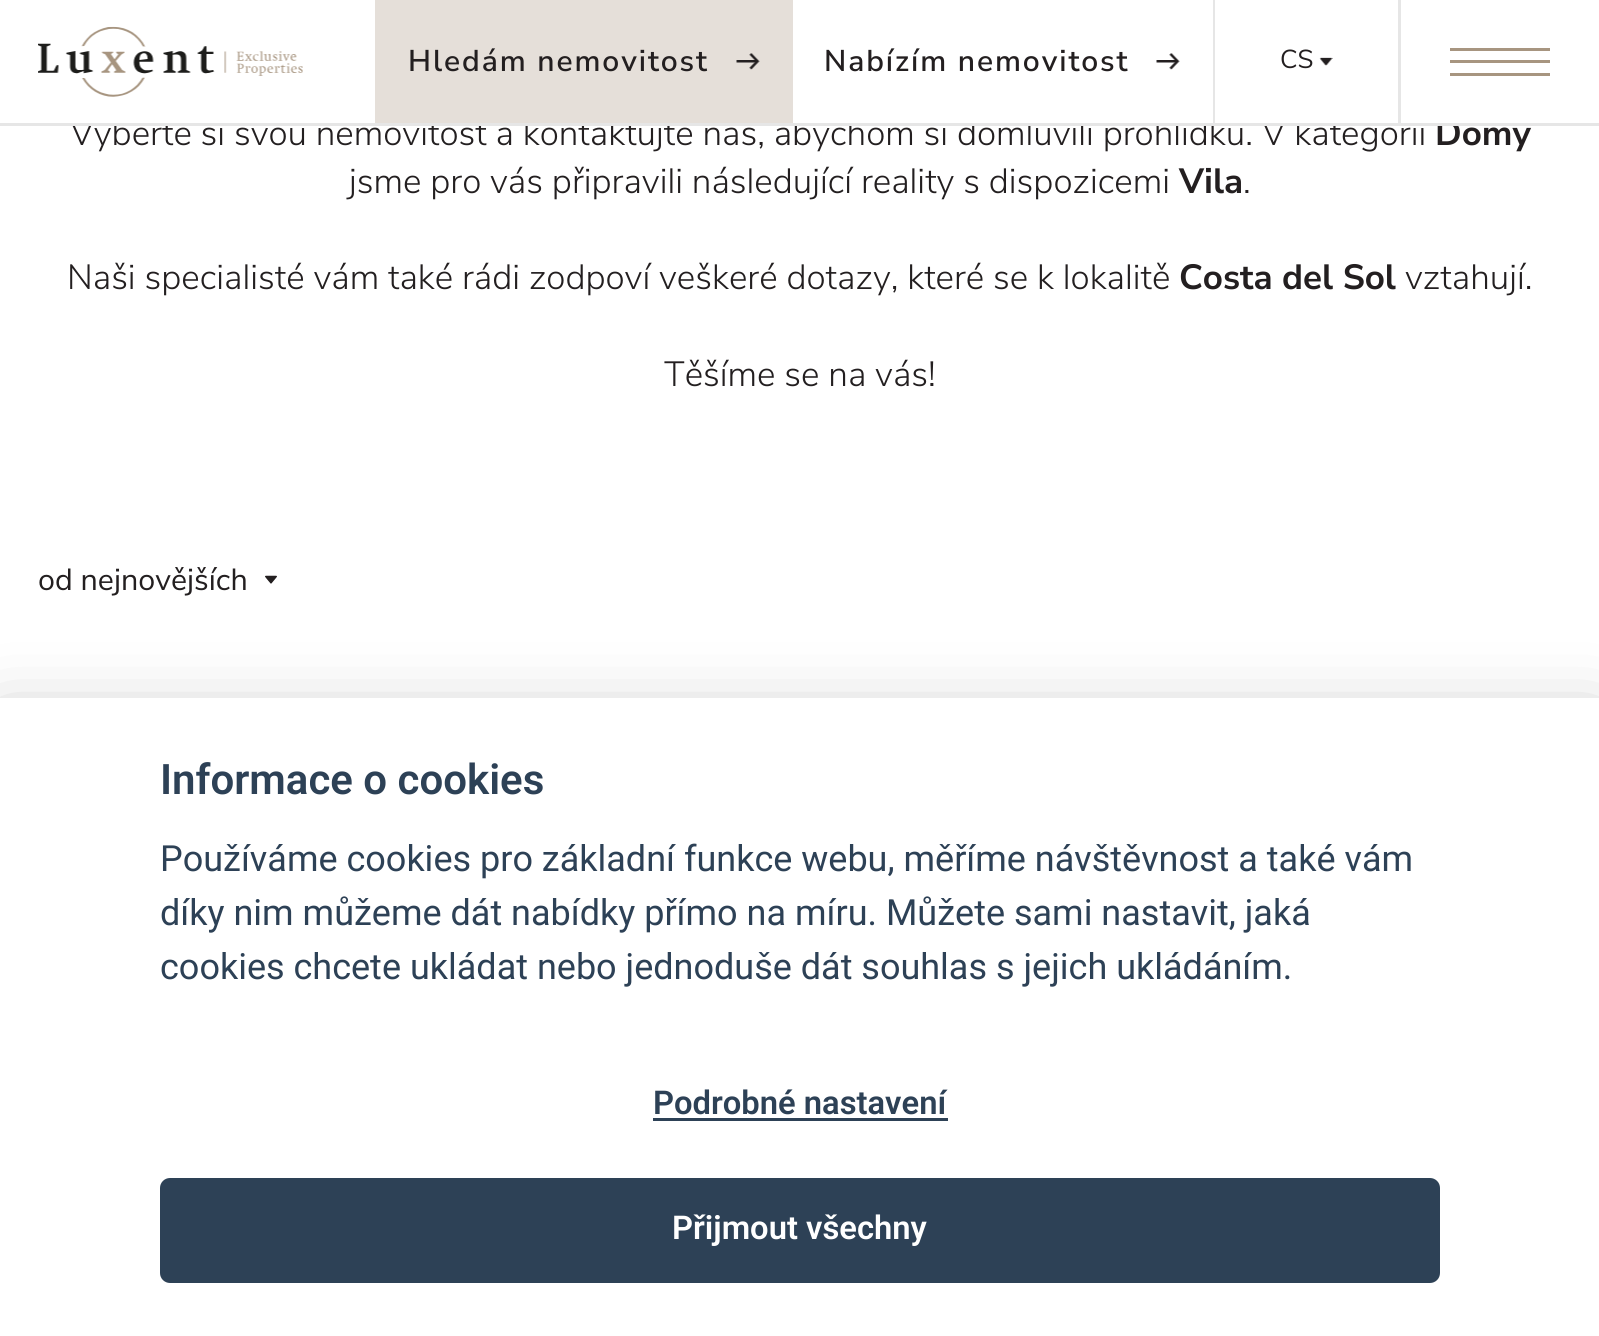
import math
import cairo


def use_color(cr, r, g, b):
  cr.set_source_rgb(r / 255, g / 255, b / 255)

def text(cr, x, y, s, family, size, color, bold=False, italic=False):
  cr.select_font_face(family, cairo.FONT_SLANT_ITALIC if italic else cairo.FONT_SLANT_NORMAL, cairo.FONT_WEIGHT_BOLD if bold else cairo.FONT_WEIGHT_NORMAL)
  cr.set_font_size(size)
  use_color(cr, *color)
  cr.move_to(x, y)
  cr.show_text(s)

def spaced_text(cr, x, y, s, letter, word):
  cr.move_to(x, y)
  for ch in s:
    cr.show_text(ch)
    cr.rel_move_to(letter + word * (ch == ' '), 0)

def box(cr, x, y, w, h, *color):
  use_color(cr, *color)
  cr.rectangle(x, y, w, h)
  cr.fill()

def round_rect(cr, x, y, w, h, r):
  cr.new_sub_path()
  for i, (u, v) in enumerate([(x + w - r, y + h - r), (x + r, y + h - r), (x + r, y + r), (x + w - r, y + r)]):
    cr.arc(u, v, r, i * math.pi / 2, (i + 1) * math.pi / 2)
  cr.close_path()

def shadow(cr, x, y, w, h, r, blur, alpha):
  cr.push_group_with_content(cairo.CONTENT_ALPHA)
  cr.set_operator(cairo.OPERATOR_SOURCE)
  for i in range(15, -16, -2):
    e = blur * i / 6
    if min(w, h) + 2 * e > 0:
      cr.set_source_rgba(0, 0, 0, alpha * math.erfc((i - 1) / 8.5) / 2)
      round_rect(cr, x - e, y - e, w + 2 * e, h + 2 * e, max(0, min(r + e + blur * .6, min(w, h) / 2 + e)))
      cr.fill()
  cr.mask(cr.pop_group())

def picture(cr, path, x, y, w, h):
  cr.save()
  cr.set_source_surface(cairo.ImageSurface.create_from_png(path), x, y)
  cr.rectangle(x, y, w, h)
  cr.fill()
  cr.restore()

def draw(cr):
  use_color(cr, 255, 255, 255)
  cr.paint()
  picture(cr, "img_01.png", 38, 26, 265, 71)
  picture(cr, "img_03.png", 1156, 53, 24, 17)
  picture(cr, "img_04.png", 1319, 57, 14, 9)
  box(cr, 1450, 60, 100, 3, 167, 149, 128)
  box(cr, 1450, 48, 100, 3, 167, 149, 128)
  box(cr, 1450, 73, 100, 3, 167, 149, 128)
  picture(cr, "img_05.png", 265, 575, 12, 9)
  use_color(cr, 2, 2, 3)
  shadow(cr, 0, 723, 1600, 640, 0, 37.5, 0.28)
  box(cr, 0, 698, 1599, 638, 255, 255, 255)
  box(cr, 653, 1118, 295, 3, 45, 65, 86)
  round_rect(cr, 160, 1178, 1280, 105, 10)
  cr.fill()
  cr.select_font_face("Nunito Sans SemiBold")
  cr.set_font_size(30)
  use_color(cr, 35, 31, 32)
  spaced_text(cr, 824, 71, "Nabízím nemovitost", 1.9, 0)
  text(cr, 1280, 68, "CS", "Nunito Sans", 26, (35, 31, 32))
  text(cr, 70, 145, "Vyberte si svou nemovitost a kontaktujte nás, abychom si domluvili prohlídku. V kategorii", "Nunito Sans Light", 35, (35, 31, 32))
  text(cr, 1435, 145, "Domy", "Nunito Sans", 35, (35, 31, 32), bold=True)
  box(cr, 69, 118, 1387, 5, 255, 255, 255)
  box(cr, 1213, 0, 2, 123, 230, 230, 230)
  box(cr, 375, 0, 418, 123, 229, 223, 217)
  picture(cr, "img_02.png", 736, 53, 24, 17)
  cr.select_font_face("Nunito Sans SemiBold")
  cr.set_font_size(30)
  use_color(cr, 35, 31, 32)
  spaced_text(cr, 408, 71, "Hledám nemovitost", 1.9, 0)
  box(cr, 1398, 0, 3, 123, 230, 230, 230)
  box(cr, 0, 123, 1599, 3, 230, 230, 230)
  text(cr, 349, 193, "jsme pro vás připravili následující reality s dispozicemi", "Nunito Sans Light", 35, (35, 31, 32))
  text(cr, 1179, 193, "Vila", "Nunito Sans", 35, (35, 31, 32), bold=True)
  text(cr, 1243, 193, ".", "Nunito Sans Light", 35, (35, 31, 32))
  text(cr, 67, 289, "Naši specialisté vám také rádi zodpoví veškeré dotazy, které se k lokalitě", "Nunito Sans Light", 35, (35, 31, 32))
  text(cr, 1179, 289, "Costa del Sol", "Nunito Sans", 35, (35, 31, 32), bold=True)
  text(cr, 1405, 289, "vztahují.", "Nunito Sans Light", 35, (35, 31, 32))
  text(cr, 664, 386, "Těšíme se na vás!", "Nunito Sans Light", 35, (35, 31, 32))
  text(cr, 38, 590, "od nejnovějších", "Nunito Sans", 30.5, (35, 31, 32))
  text(cr, 160, 794, "Informace o cookies", "Roboto SemiBold", 42, (45, 65, 86))
  text(cr, 160, 871, "Používáme cookies pro základní funkce webu, měříme návštěvnost a také vám", "Roboto", 36, (45, 65, 86))
  text(cr, 160, 925, "díky nim můžeme dát nabídky přímo na míru. Můžete sami nastavit, jaká", "Roboto", 36, (45, 65, 86))
  text(cr, 160, 979, "cookies chcete ukládat nebo jednoduše dát souhlas s jejich ukládáním.", "Roboto", 36, (45, 65, 86))
  text(cr, 653, 1114, "Podrobné nastavení", "Roboto SemiBold", 32.75, (45, 65, 86))
  text(cr, 672, 1239, "Přijmout všechny", "Roboto SemiBold", 32.75, (255, 255, 255))


surface = cairo.ImageSurface(cairo.FORMAT_RGB24, 1599, 1336)
cr = cairo.Context(surface)
options = cairo.FontOptions()
options.set_hint_metrics(cairo.HINT_METRICS_OFF)
options.set_hint_style(cairo.HINT_STYLE_NONE)
cr.set_font_options(options)
cr.set_miter_limit(4)
draw(cr)
surface.write_to_png("out.png")
